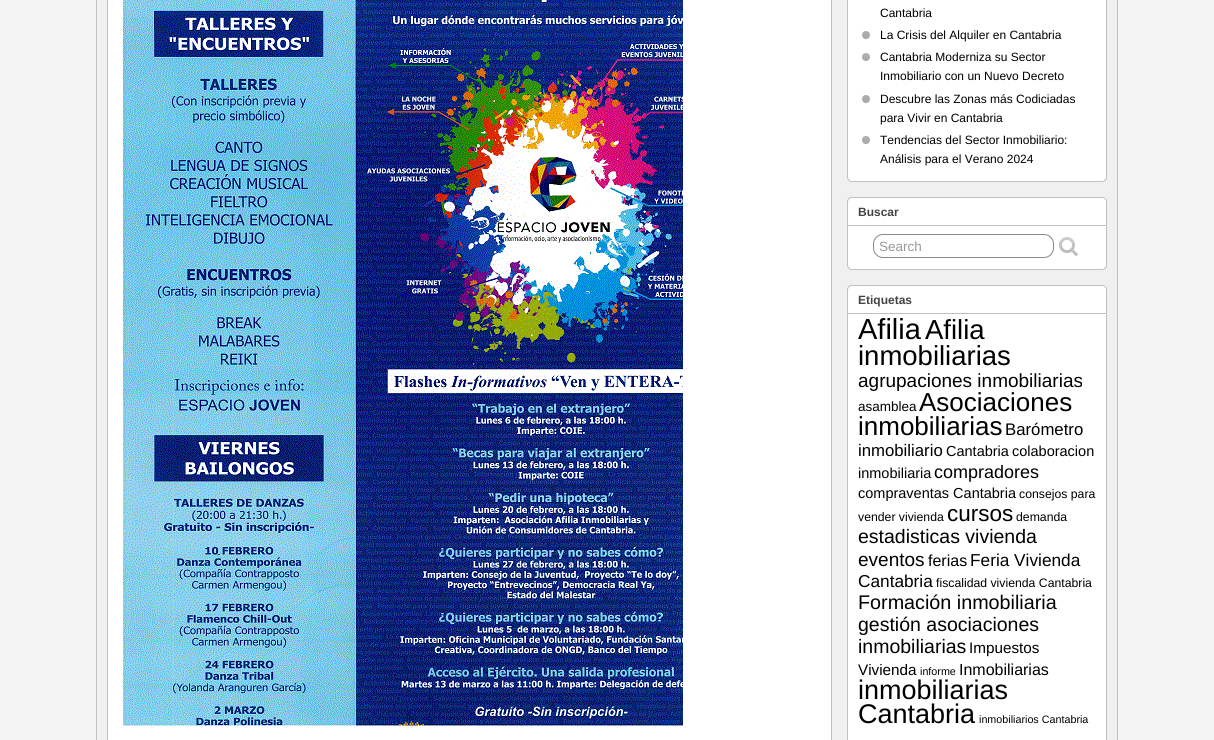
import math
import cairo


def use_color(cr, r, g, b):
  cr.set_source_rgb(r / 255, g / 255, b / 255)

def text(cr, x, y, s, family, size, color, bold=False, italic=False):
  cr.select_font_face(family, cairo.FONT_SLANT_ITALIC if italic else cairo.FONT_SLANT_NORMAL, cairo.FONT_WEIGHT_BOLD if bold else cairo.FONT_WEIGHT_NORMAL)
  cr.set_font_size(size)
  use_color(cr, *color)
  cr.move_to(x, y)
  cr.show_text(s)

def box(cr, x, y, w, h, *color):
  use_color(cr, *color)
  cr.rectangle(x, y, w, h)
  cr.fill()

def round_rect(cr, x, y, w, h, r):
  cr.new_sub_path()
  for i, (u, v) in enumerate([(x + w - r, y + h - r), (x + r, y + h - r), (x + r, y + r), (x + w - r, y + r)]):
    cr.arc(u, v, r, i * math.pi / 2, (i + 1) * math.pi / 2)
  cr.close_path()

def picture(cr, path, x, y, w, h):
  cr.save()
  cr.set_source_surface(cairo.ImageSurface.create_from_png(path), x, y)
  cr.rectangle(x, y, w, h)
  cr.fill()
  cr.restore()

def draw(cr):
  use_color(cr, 244, 244, 244)
  cr.paint()
  use_color(cr, 240, 240, 240)
  cr.rectangle(96.5, -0.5, 1021, 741)
  cr.fill_preserve()
  use_color(cr, 192, 192, 192)
  cr.set_line_width(1)
  cr.stroke()
  use_color(cr, 255, 255, 255)
  cr.rectangle(107.5, -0.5, 724, 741)
  cr.fill_preserve()
  use_color(cr, 192, 192, 192)
  cr.stroke()
  picture(cr, "img_01.png", 123, 0, 560, 726)
  use_color(cr, 255, 255, 255)
  round_rect(cr, 847.5, -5.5, 259, 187, 4.5)
  cr.fill_preserve()
  use_color(cr, 192, 192, 192)
  cr.stroke()
  picture(cr, "img_02.png", 862, 31, 8, 8)
  picture(cr, "img_02.png", 862, 53, 8, 8)
  picture(cr, "img_02.png", 862, 95, 8, 8)
  picture(cr, "img_02.png", 862, 136, 8, 8)
  use_color(cr, 255, 255, 255)
  round_rect(cr, 847.5, 197.5, 259, 72, 4.5)
  cr.fill_preserve()
  use_color(cr, 192, 192, 192)
  cr.stroke()
  box(cr, 848, 225, 258, 1, 192, 192, 192)
  round_rect(cr, 873.5, 234.5, 180, 23, 9.5)
  use_color(cr, 136, 136, 136)
  cr.stroke()
  picture(cr, "img_03.png", 1059, 237, 19, 19)
  use_color(cr, 255, 255, 255)
  round_rect(cr, 847.5, 285.5, 259, 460, 4.5)
  cr.fill_preserve()
  use_color(cr, 192, 192, 192)
  cr.stroke()
  box(cr, 848, 313, 258, 1, 192, 192, 192)
  text(cr, 880, 17, "Cantabria", "Liberation Sans", 12, (0, 0, 0))
  text(cr, 880, 39, "La Crisis del Alquiler en Cantabria", "Liberation Sans", 12, (0, 0, 0))
  text(cr, 880, 61, "Cantabria Moderniza su Sector", "Liberation Sans", 12, (0, 0, 0))
  text(cr, 880, 80, "Inmobiliario con un Nuevo Decreto", "Liberation Sans", 12, (0, 0, 0))
  text(cr, 880, 103, "Descubre las Zonas más Codiciadas", "Liberation Sans", 12, (0, 0, 0))
  text(cr, 880, 122, "para Vivir en Cantabria", "Liberation Sans", 12, (0, 0, 0))
  text(cr, 880, 144, "Tendencias del Sector Inmobiliario:", "Liberation Sans", 12, (0, 0, 0))
  text(cr, 880, 163, "Análisis para el Verano 2024", "Liberation Sans", 12, (0, 0, 0))
  text(cr, 858, 216, "Buscar", "Liberation Sans", 12, (68, 68, 68), bold=True)
  text(cr, 879, 251, "Search", "Liberation Sans", 13.5, (153, 153, 153))
  text(cr, 858, 304, "Etiquetas", "Liberation Sans", 12, (68, 68, 68), bold=True)
  text(cr, 858, 339, "Afilia", "Liberation Sans", 29, (0, 0, 0))
  text(cr, 925, 339, "Afilia", "Liberation Sans", 27.5, (0, 0, 0))
  text(cr, 858, 365, "inmobiliarias", "Liberation Sans", 27.5, (0, 0, 0))
  text(cr, 858, 387, "agrupaciones inmobiliarias", "Liberation Sans", 19, (0, 0, 0))
  text(cr, 858, 411, "asamblea", "Liberation Sans", 13.5, (0, 0, 0))
  text(cr, 919, 411, "Asociaciones", "Liberation Sans", 26, (0, 0, 0))
  text(cr, 858, 435, "inmobiliarias", "Liberation Sans", 26, (0, 0, 0))
  text(cr, 1005, 435, "Barómetro", "Liberation Sans", 16.75, (0, 0, 0))
  text(cr, 858, 456, "inmobiliario", "Liberation Sans", 16.75, (0, 0, 0))
  text(cr, 946, 456, "Cantabria", "Liberation Sans", 14.5, (0, 0, 0))
  text(cr, 1012, 456, "colaboracion", "Liberation Sans", 14.5, (0, 0, 0))
  text(cr, 858, 478, "inmobiliaria", "Liberation Sans", 14.5, (0, 0, 0))
  text(cr, 934, 478, "compradores", "Liberation Sans", 18, (0, 0, 0))
  text(cr, 858, 498, "compraventas Cantabria", "Liberation Sans", 14.5, (0, 0, 0))
  text(cr, 1019, 498, "consejos para", "Liberation Sans", 12.25, (0, 0, 0))
  text(cr, 858, 521, "vender vivienda", "Liberation Sans", 12.25, (0, 0, 0))
  text(cr, 947, 521, "cursos", "Liberation Sans", 22.5, (0, 0, 0))
  text(cr, 1016, 521, "demanda", "Liberation Sans", 12.25, (0, 0, 0))
  text(cr, 858, 543, "estadisticas vivienda", "Liberation Sans", 19.5, (0, 0, 0))
  text(cr, 858, 566, "eventos", "Liberation Sans", 19, (0, 0, 0))
  text(cr, 928, 566, "ferias", "Liberation Sans", 16, (0, 0, 0))
  text(cr, 970, 566, "Feria Vivienda", "Liberation Sans", 17.25, (0, 0, 0))
  text(cr, 858, 587, "Cantabria", "Liberation Sans", 17.25, (0, 0, 0))
  text(cr, 936, 587, "fiscalidad vivienda Cantabria", "Liberation Sans", 12.25, (0, 0, 0))
  text(cr, 858, 609, "Formación inmobiliaria", "Liberation Sans", 19.75, (0, 0, 0))
  text(cr, 858, 631, "gestión asociaciones", "Liberation Sans", 19.5, (0, 0, 0))
  text(cr, 858, 653, "inmobiliarias", "Liberation Sans", 19.5, (0, 0, 0))
  text(cr, 969, 653, "Impuestos", "Liberation Sans", 15.25, (0, 0, 0))
  text(cr, 858, 675, "Vivienda", "Liberation Sans", 15.25, (0, 0, 0))
  text(cr, 920, 675, "informe", "Liberation Sans", 10.75, (0, 0, 0))
  text(cr, 959, 675, "Inmobiliarias", "Liberation Sans", 16, (0, 0, 0))
  text(cr, 858, 699, "inmobiliarias", "Liberation Sans", 27, (0, 0, 0))
  text(cr, 858, 723, "Cantabria", "Liberation Sans", 27, (0, 0, 0))
  text(cr, 979, 723, "inmobiliarios Cantabria", "Liberation Sans", 10.75, (0, 0, 0))


surface = cairo.ImageSurface(cairo.FORMAT_RGB24, 1214, 740)
cr = cairo.Context(surface)
options = cairo.FontOptions()
options.set_hint_metrics(cairo.HINT_METRICS_OFF)
options.set_hint_style(cairo.HINT_STYLE_NONE)
cr.set_font_options(options)
cr.set_miter_limit(4)
draw(cr)
surface.write_to_png("out.png")
